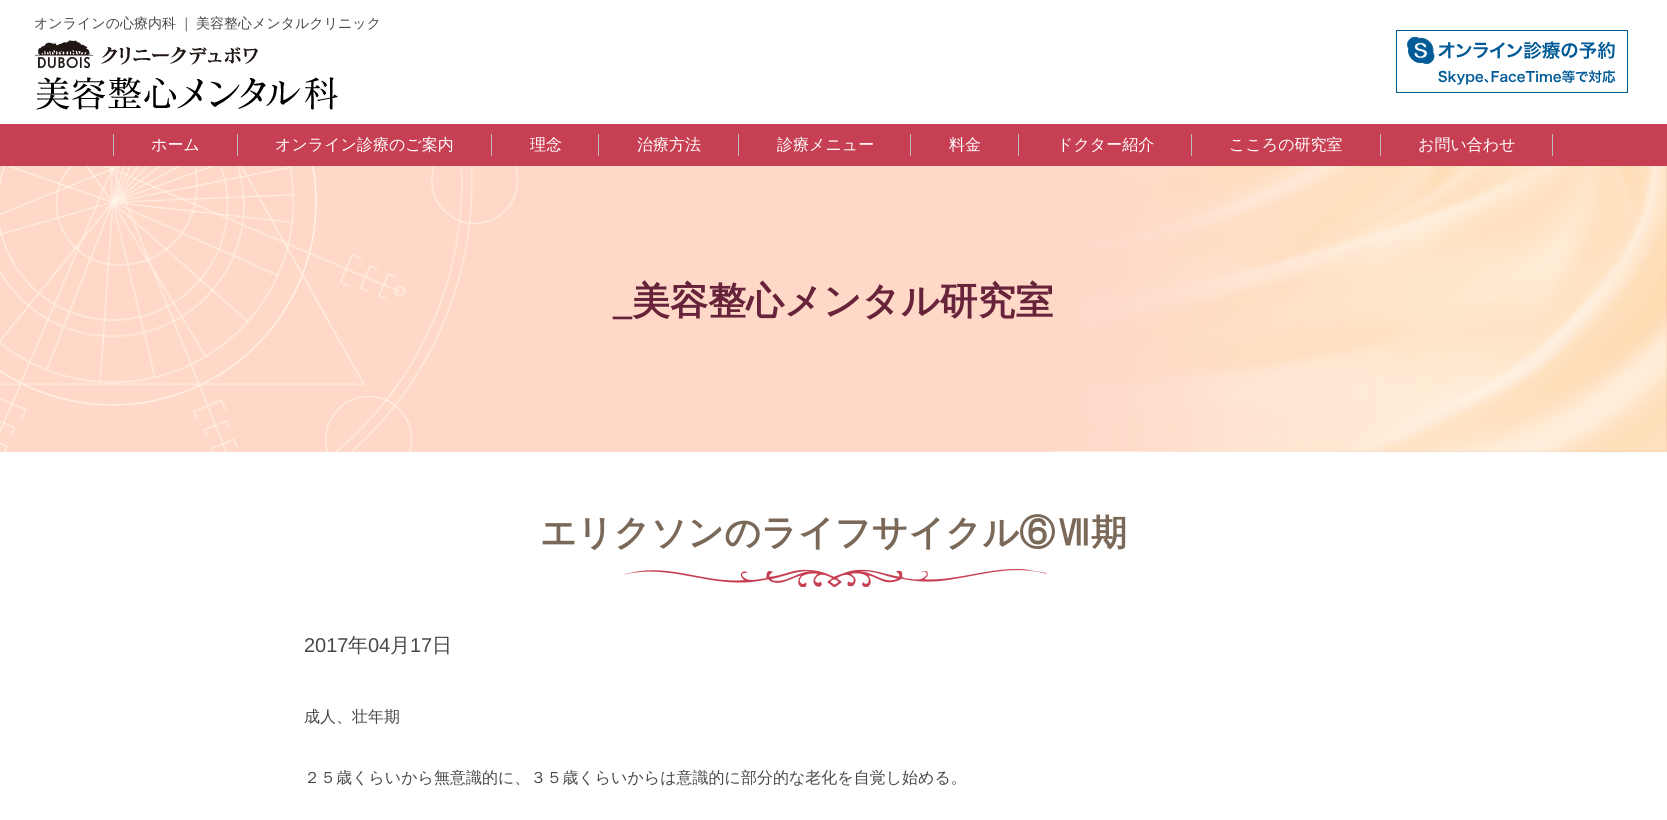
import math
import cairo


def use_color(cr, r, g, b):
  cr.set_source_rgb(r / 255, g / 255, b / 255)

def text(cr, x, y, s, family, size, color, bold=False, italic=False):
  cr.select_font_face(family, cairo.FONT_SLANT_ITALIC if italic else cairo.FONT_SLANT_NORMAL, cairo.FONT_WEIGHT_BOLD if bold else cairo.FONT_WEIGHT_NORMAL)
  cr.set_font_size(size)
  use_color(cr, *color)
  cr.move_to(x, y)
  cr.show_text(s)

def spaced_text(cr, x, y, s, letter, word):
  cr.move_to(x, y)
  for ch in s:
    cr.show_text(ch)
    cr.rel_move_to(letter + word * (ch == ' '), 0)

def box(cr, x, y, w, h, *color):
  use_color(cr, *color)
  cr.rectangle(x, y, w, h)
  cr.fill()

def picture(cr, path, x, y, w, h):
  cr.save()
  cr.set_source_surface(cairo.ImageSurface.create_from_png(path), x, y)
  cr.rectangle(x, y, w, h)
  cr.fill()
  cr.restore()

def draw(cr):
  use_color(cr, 255, 255, 255)
  cr.paint()
  picture(cr, "img_01.png", 34, 40, 304, 70)
  picture(cr, "img_02.png", 1396, 30, 232, 63)
  box(cr, 0, 124, 1667, 42, 199, 63, 82)
  box(cr, 113, 134, 1, 22, 187, 187, 187)
  box(cr, 237, 134, 1, 22, 187, 187, 187)
  box(cr, 491, 134, 1, 22, 187, 187, 187)
  box(cr, 598, 134, 1, 22, 187, 187, 187)
  box(cr, 738, 134, 1, 22, 187, 187, 187)
  box(cr, 910, 134, 1, 22, 187, 187, 187)
  box(cr, 1018, 134, 1, 22, 187, 187, 187)
  box(cr, 1191, 134, 1, 22, 187, 187, 187)
  box(cr, 1380, 134, 1, 22, 187, 187, 187)
  box(cr, 1552, 134, 1, 22, 187, 187, 187)
  box(cr, 629, 166, 409, 286, 255, 216, 200)
  picture(cr, "img_03.png", 0, 166, 1667, 286)
  picture(cr, "img_04.png", 622, 569, 425, 18)
  cr.select_font_face("WenQuanYi Zen Hei Medium")
  cr.set_font_size(14)
  use_color(cr, 72, 72, 72)
  spaced_text(cr, 34, 28, "オンラインの心療内科 ｜ 美容整心メンタルクリニック", 0, -1)
  text(cr, 151, 150, "ホーム", "WenQuanYi Zen Hei Medium", 16, (255, 255, 255))
  text(cr, 275, 150, "オンライン診療のご案内", "WenQuanYi Zen Hei Medium", 16, (255, 255, 255))
  text(cr, 530, 150, "理念", "WenQuanYi Zen Hei Medium", 16, (255, 255, 255))
  text(cr, 637, 150, "治療方法", "WenQuanYi Zen Hei Medium", 16, (255, 255, 255))
  text(cr, 777, 150, "診療メニュー", "WenQuanYi Zen Hei Medium", 16, (255, 255, 255))
  text(cr, 949, 150, "料金", "WenQuanYi Zen Hei Medium", 16, (255, 255, 255))
  text(cr, 1057, 150, "ドクター紹介", "WenQuanYi Zen Hei Medium", 16, (255, 255, 255))
  text(cr, 1229, 150, "こころの研究室", "WenQuanYi Zen Hei Medium", 16, (255, 255, 255))
  text(cr, 1418, 150, "お問い合わせ", "WenQuanYi Zen Hei Medium", 16, (255, 255, 255))
  text(cr, 613, 314, "_", "Liberation Serif", 38, (103, 35, 57), bold=True)
  text(cr, 632, 314, "美容整心メンタル研究室", "WenQuanYi Zen Hei", 38, (103, 35, 57), bold=True)
  text(cr, 540, 545, "エリクソンのライフサイクル⑥Ⅶ期", "WenQuanYi Zen Hei", 36, (122, 104, 88), bold=True)
  text(cr, 304, 652, "2017", "Liberation Sans", 20, (72, 72, 72))
  text(cr, 348, 652, "年", "WenQuanYi Zen Hei Medium", 20, (72, 72, 72))
  text(cr, 368, 652, "04", "Liberation Sans", 20, (72, 72, 72))
  text(cr, 390, 652, "月", "WenQuanYi Zen Hei Medium", 20, (72, 72, 72))
  text(cr, 410, 652, "17", "Liberation Sans", 20, (72, 72, 72))
  text(cr, 432, 652, "日", "WenQuanYi Zen Hei Medium", 20, (72, 72, 72))
  text(cr, 304, 722, "成人、壮年期", "WenQuanYi Zen Hei Medium", 16, (72, 72, 72))
  text(cr, 304, 783, "２５歳くらいから無意識的に、３５歳くらいからは意識的に部分的な老化を自覚し始める。", "WenQuanYi Zen Hei Medium", 16, (72, 72, 72))


surface = cairo.ImageSurface(cairo.FORMAT_RGB24, 1667, 820)
cr = cairo.Context(surface)
options = cairo.FontOptions()
options.set_hint_metrics(cairo.HINT_METRICS_OFF)
options.set_hint_style(cairo.HINT_STYLE_NONE)
cr.set_font_options(options)
cr.set_miter_limit(4)
draw(cr)
surface.write_to_png("out.png")
